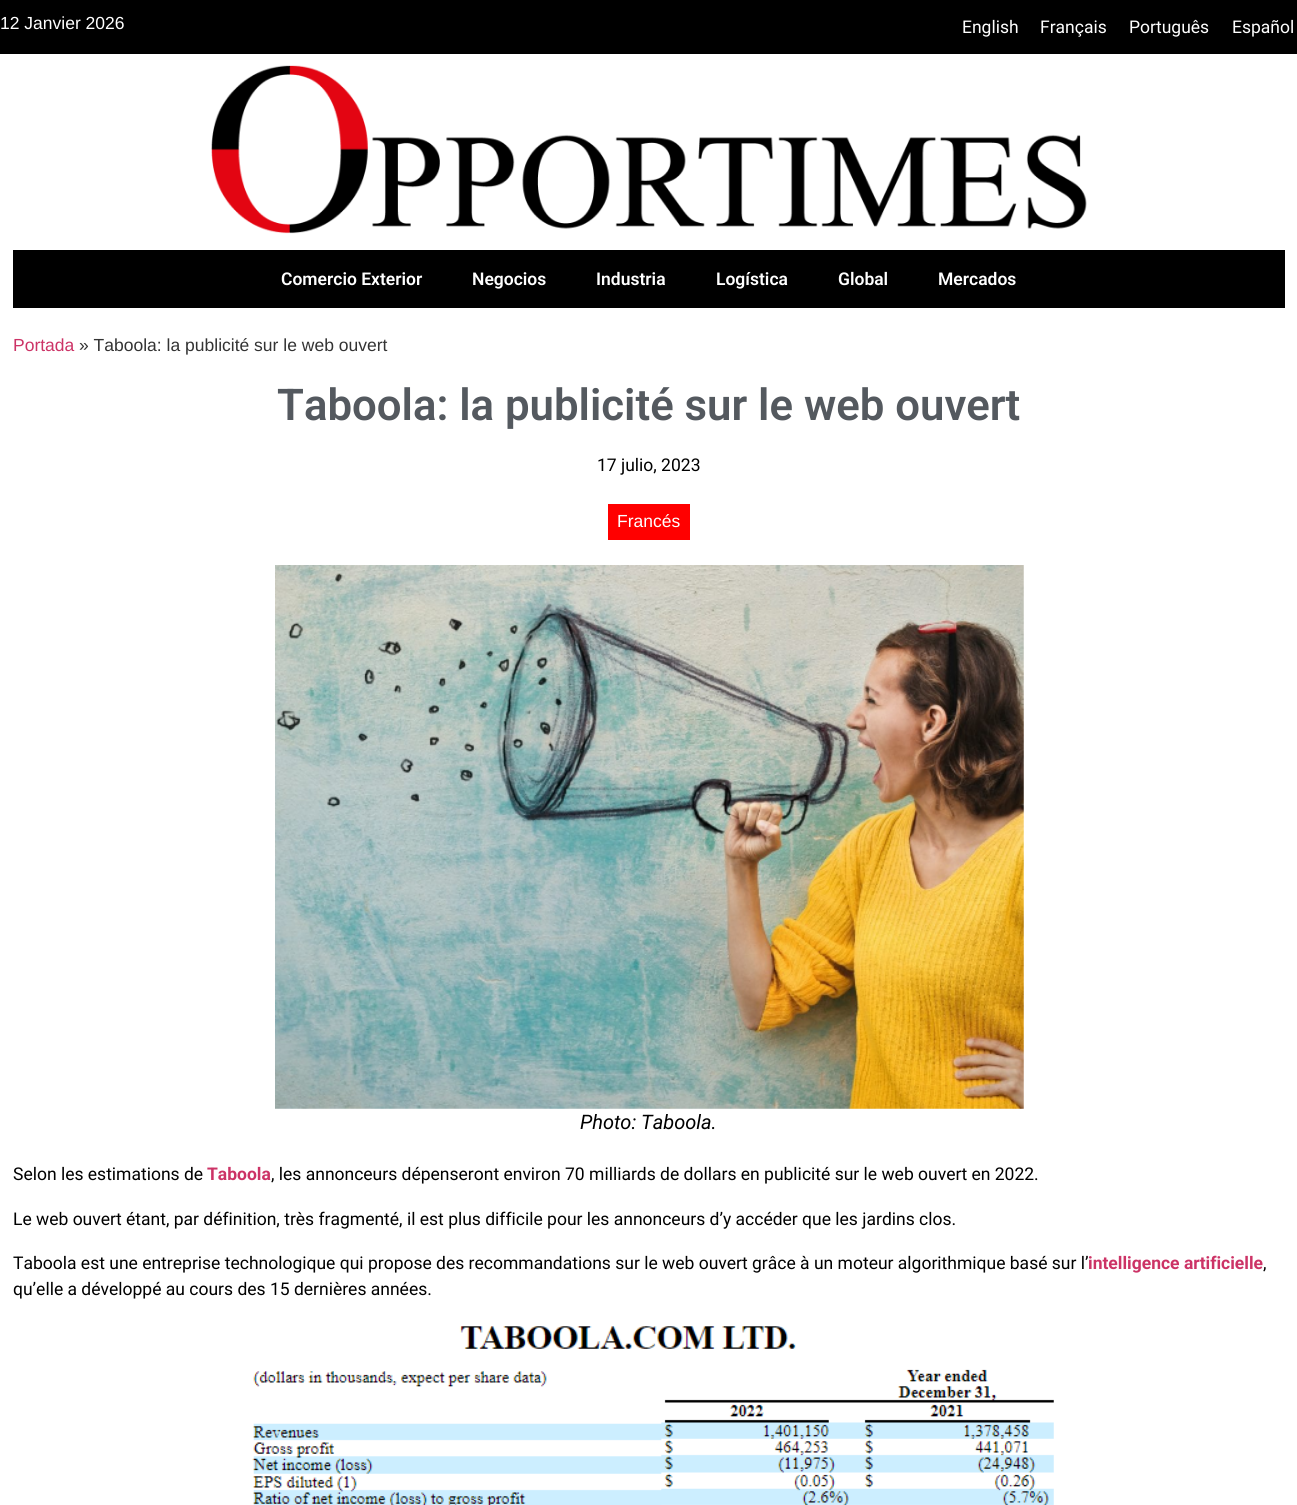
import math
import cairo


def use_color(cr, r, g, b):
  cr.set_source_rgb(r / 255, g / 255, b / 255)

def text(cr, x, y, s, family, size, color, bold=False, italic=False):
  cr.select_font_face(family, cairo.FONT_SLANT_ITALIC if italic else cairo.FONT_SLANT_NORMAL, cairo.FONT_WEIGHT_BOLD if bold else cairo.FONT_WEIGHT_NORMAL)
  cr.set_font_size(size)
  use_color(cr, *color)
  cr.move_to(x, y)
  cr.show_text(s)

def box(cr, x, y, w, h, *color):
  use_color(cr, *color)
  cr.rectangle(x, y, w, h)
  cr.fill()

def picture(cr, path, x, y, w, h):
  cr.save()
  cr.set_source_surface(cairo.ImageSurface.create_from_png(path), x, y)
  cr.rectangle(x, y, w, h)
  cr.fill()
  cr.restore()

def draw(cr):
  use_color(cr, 255, 255, 255)
  cr.paint()
  box(cr, 0, 0, 1297, 54, 0, 0, 0)
  picture(cr, "img_01.png", 211, 65, 876, 169)
  box(cr, 13, 250, 1272, 58, 0, 0, 0)
  box(cr, 608, 504, 82, 36, 255, 0, 0)
  picture(cr, "img_02.png", 275, 565, 749, 544)
  picture(cr, "img_03.png", 252, 1326, 802, 179)
  text(cr, 0, 29, "12 Janvier 2026", "Liberation Sans", 17.5, (255, 255, 255))
  text(cr, 962, 33, "English", "Roboto", 17.5, (255, 255, 255))
  text(cr, 1040, 33, "Français", "Roboto", 17.5, (255, 255, 255))
  text(cr, 1129, 33, "Português", "Roboto", 17.5, (255, 255, 255))
  text(cr, 1232, 33, "Español", "Roboto", 17.5, (255, 255, 255))
  text(cr, 281, 285, "Comercio Exterior", "Roboto SemiBold", 17.5, (255, 255, 255))
  text(cr, 472, 285, "Negocios", "Roboto SemiBold", 17.5, (255, 255, 255))
  text(cr, 596, 285, "Industria", "Roboto SemiBold", 17.5, (255, 255, 255))
  text(cr, 716, 285, "Logística", "Roboto SemiBold", 17.5, (255, 255, 255))
  text(cr, 838, 285, "Global", "Roboto SemiBold", 17.5, (255, 255, 255))
  text(cr, 938, 285, "Mercados", "Roboto SemiBold", 17.5, (255, 255, 255))
  text(cr, 13, 351, "Portada", "Liberation Sans", 17.5, (204, 51, 102))
  text(cr, 79, 351, "» Taboola: la publicité sur le web ouvert", "Liberation Sans", 17.5, (51, 51, 51))
  text(cr, 277, 420, "Taboola: la publicité sur le web ouvert", "Roboto SemiBold", 43.75, (84, 89, 95))
  text(cr, 597, 471, "17 julio, 2023", "Roboto", 17.5, (0, 0, 0))
  text(cr, 617, 527, "Francés", "Liberation Sans", 17.5, (255, 255, 255))
  text(cr, 580, 1129, "Photo: Taboola.", "Roboto", 20, (0, 0, 0), italic=True)
  text(cr, 13, 1180, "Selon les estimations de", "Roboto", 17.5, (0, 0, 0))
  text(cr, 207, 1180, "Taboola", "Roboto", 17.5, (204, 51, 102), bold=True)
  text(cr, 271, 1180, ", les annonceurs dépenseront environ 70 milliards de dollars en publicité sur le web ouvert en 2022.", "Roboto", 17.5, (0, 0, 0))
  text(cr, 13, 1225, "Le web ouvert étant, par définition, très fragmenté, il est plus difficile pour les annonceurs d’y accéder que les jardins clos.", "Roboto", 17.5, (0, 0, 0))
  text(cr, 13, 1269, "Taboola est une entreprise technologique qui propose des recommandations sur le web ouvert grâce à un moteur algorithmique basé sur l’", "Roboto", 17.5, (0, 0, 0))
  text(cr, 1088, 1269, "intelligence artificielle", "Roboto", 17.5, (204, 51, 102), bold=True)
  text(cr, 1263, 1269, ",", "Roboto", 17.5, (0, 0, 0))
  text(cr, 13, 1295, "qu’elle a développé au cours des 15 dernières années.", "Roboto", 17.5, (0, 0, 0))


surface = cairo.ImageSurface(cairo.FORMAT_RGB24, 1297, 1505)
cr = cairo.Context(surface)
options = cairo.FontOptions()
options.set_hint_metrics(cairo.HINT_METRICS_OFF)
options.set_hint_style(cairo.HINT_STYLE_NONE)
cr.set_font_options(options)
cr.set_miter_limit(4)
draw(cr)
surface.write_to_png("out.png")
